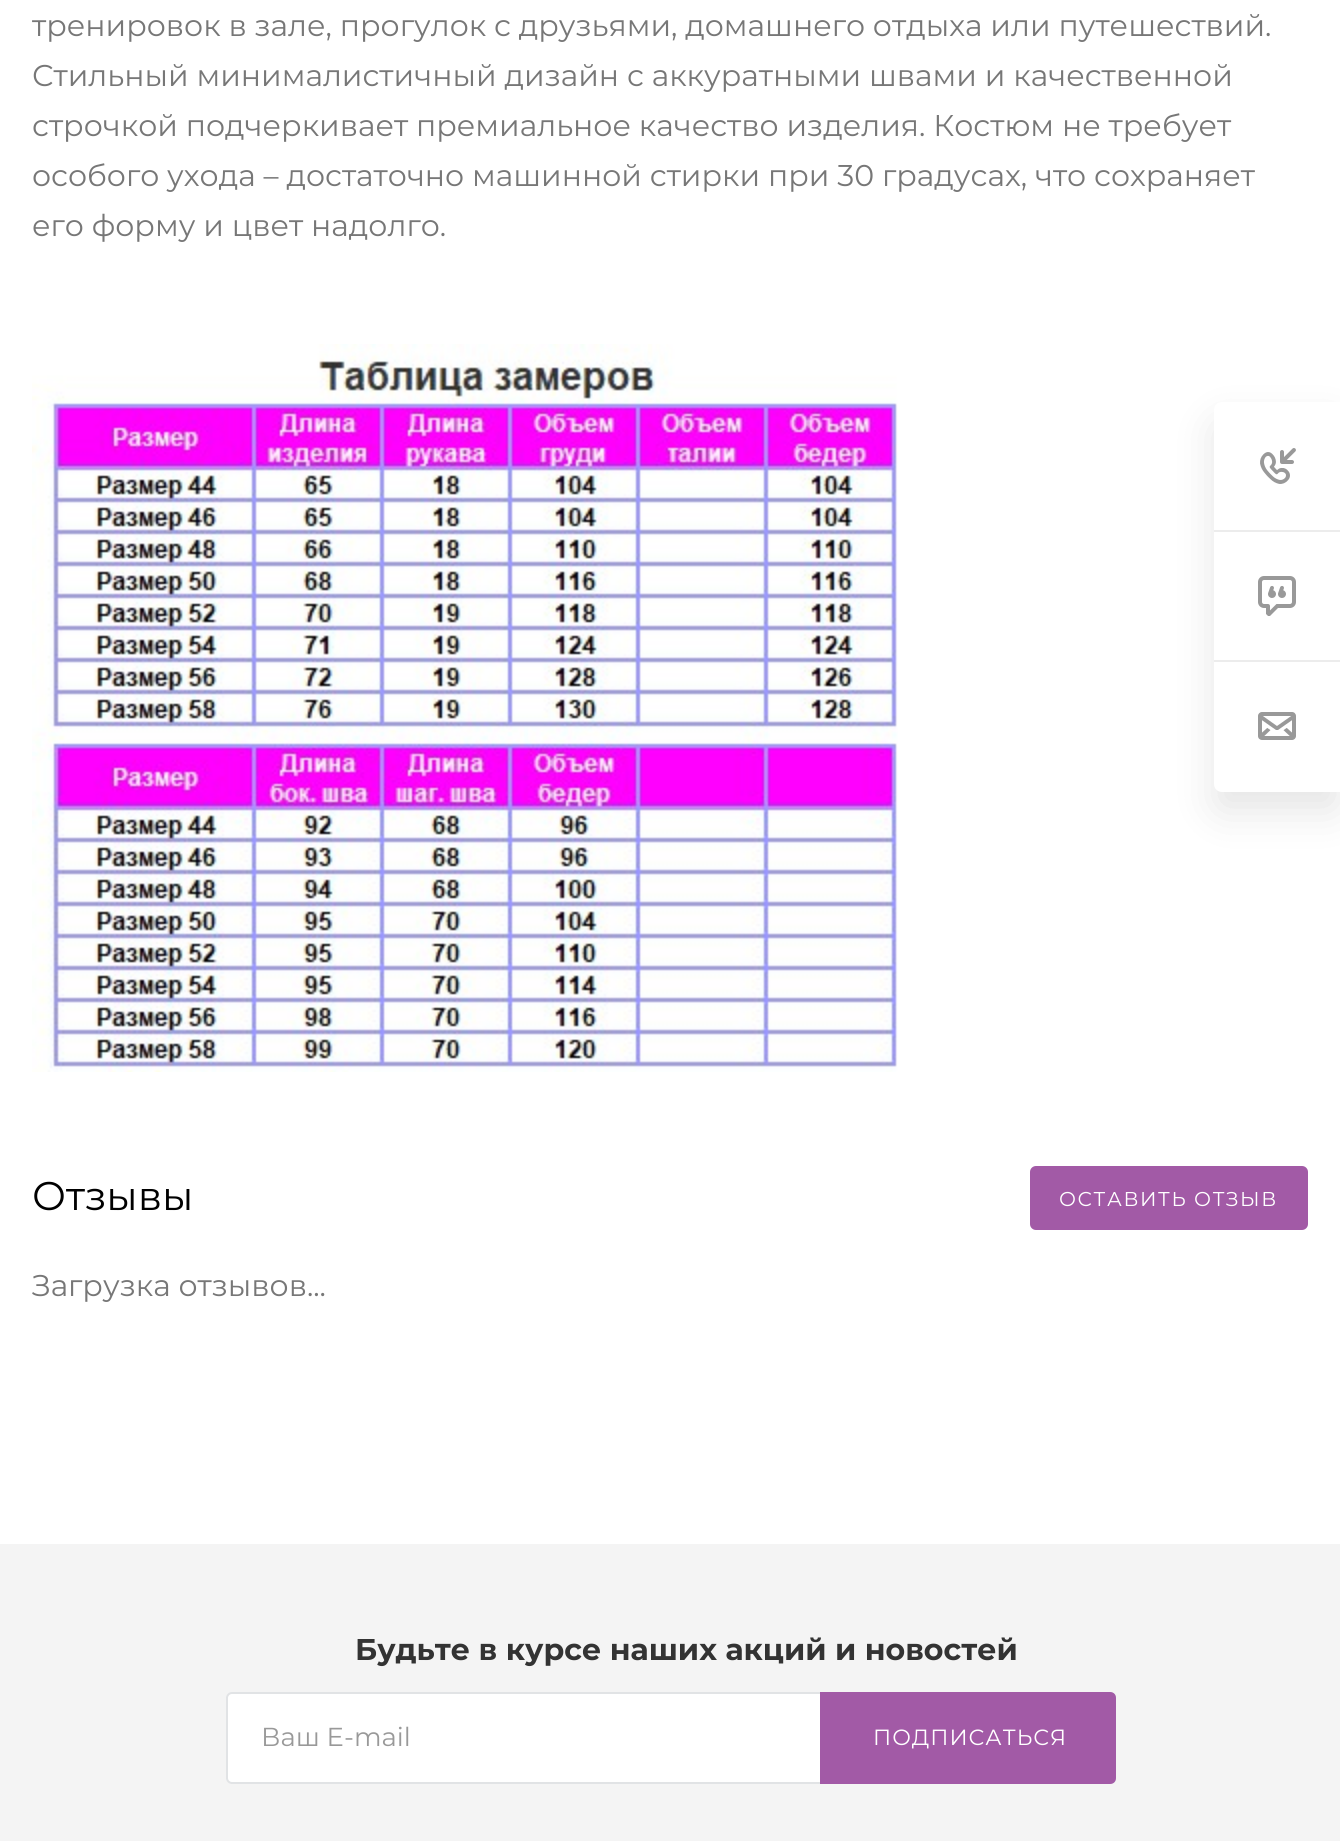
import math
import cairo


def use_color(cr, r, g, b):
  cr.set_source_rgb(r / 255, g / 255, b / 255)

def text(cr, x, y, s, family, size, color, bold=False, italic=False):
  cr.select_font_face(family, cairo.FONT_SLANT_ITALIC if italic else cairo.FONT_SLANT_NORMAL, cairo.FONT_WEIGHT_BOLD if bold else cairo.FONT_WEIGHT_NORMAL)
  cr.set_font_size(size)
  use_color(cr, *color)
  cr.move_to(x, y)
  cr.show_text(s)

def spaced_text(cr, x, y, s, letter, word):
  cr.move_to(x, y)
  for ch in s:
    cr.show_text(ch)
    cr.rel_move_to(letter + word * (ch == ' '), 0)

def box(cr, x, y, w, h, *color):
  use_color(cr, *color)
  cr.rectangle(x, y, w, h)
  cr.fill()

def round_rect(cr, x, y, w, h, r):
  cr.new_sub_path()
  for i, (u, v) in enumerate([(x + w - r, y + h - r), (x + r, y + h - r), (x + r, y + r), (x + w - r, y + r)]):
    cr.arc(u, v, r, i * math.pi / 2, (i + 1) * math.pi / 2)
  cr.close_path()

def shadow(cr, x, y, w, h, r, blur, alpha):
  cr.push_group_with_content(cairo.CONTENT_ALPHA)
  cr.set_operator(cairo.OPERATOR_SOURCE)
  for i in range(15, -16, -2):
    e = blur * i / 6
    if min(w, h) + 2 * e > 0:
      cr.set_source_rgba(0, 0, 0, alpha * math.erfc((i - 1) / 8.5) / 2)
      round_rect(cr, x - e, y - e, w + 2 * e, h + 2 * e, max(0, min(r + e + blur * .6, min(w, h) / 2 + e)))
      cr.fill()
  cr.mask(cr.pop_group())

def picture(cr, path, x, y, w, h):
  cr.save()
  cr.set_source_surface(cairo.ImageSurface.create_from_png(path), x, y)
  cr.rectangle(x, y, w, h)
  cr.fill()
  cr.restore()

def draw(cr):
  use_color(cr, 255, 255, 255)
  cr.paint()
  picture(cr, "img_01.png", 32, 344, 866, 728)
  use_color(cr, 162, 90, 166)
  round_rect(cr, 1031, 1167, 276, 62, 5)
  cr.fill_preserve()
  cr.stroke()
  use_color(cr, 0, 0, 0)
  shadow(cr, 1214, 422, 126, 390, 8, 20, 0.1)
  use_color(cr, 255, 255, 255)
  cr.new_path()
  cr.move_to(1222, 402)
  cr.line_to(1340, 402)
  cr.line_to(1340, 792)
  cr.line_to(1222, 792)
  cr.curve_to(1217.5, 792, 1214, 788.5, 1214, 784)
  cr.line_to(1214, 410)
  cr.curve_to(1214, 405.5, 1217.5, 402, 1222, 402)
  cr.close_path()
  cr.fill()
  box(cr, 1214, 530, 126, 2, 236, 236, 236)
  picture(cr, "img_02.png", 1260, 448, 36, 36)
  box(cr, 1214, 660, 126, 2, 236, 236, 236)
  picture(cr, "img_03.png", 1258, 576, 38, 40)
  picture(cr, "img_04.png", 1258, 712, 38, 28)
  box(cr, 0, 1544, 1340, 297, 244, 244, 244)
  use_color(cr, 255, 255, 255)
  round_rect(cr, 227, 1693, 888, 90, 5)
  cr.fill_preserve()
  use_color(cr, 225, 227, 229)
  cr.stroke()
  use_color(cr, 162, 90, 166)
  cr.new_path()
  cr.move_to(821, 1693)
  cr.line_to(1110, 1693)
  cr.curve_to(1113, 1693, 1115, 1695, 1115, 1698)
  cr.line_to(1115, 1778)
  cr.curve_to(1115, 1781, 1113, 1783, 1110, 1783)
  cr.line_to(821, 1783)
  cr.close_path()
  cr.fill_preserve()
  cr.stroke()
  text(cr, 32, 36, "тренировок в зале, прогулок с друзьями, домашнего отдыха или путешествий.", "Montserrat", 30, (119, 119, 119))
  text(cr, 32, 86, "Стильный минималистичный дизайн с аккуратными швами и качественной", "Montserrat", 30, (119, 119, 119))
  text(cr, 32, 136, "строчкой подчеркивает премиальное качество изделия. Костюм не требует", "Montserrat", 30, (119, 119, 119))
  text(cr, 32, 186, "особого ухода – достаточно машинной стирки при 30 градусах, что сохраняет", "Montserrat", 30, (119, 119, 119))
  text(cr, 32, 236, "его форму и цвет надолго.", "Montserrat", 30, (119, 119, 119))
  text(cr, 32, 1210, "Отзывы", "Montserrat", 40, (0, 0, 0))
  cr.set_font_size(20)
  use_color(cr, 255, 255, 255)
  spaced_text(cr, 1059, 1206, "ОСТАВИТЬ ОТЗЫВ", 1.6, 0)
  text(cr, 32, 1296, "Загрузка отзывов...", "Montserrat", 30, (119, 119, 119))
  text(cr, 355, 1660, "Будьте в курсе наших акций и новостей", "Montserrat", 30, (51, 51, 51), bold=True)
  text(cr, 261, 1746, "Ваш E-mail", "Montserrat", 26, (153, 153, 153))
  cr.set_font_size(22)
  use_color(cr, 255, 255, 255)
  spaced_text(cr, 873, 1745, "ПОДПИСАТЬСЯ", 1, 0)


surface = cairo.ImageSurface(cairo.FORMAT_RGB24, 1340, 1841)
cr = cairo.Context(surface)
options = cairo.FontOptions()
options.set_hint_metrics(cairo.HINT_METRICS_OFF)
options.set_hint_style(cairo.HINT_STYLE_NONE)
cr.set_font_options(options)
cr.set_miter_limit(4)
draw(cr)
surface.write_to_png("out.png")
